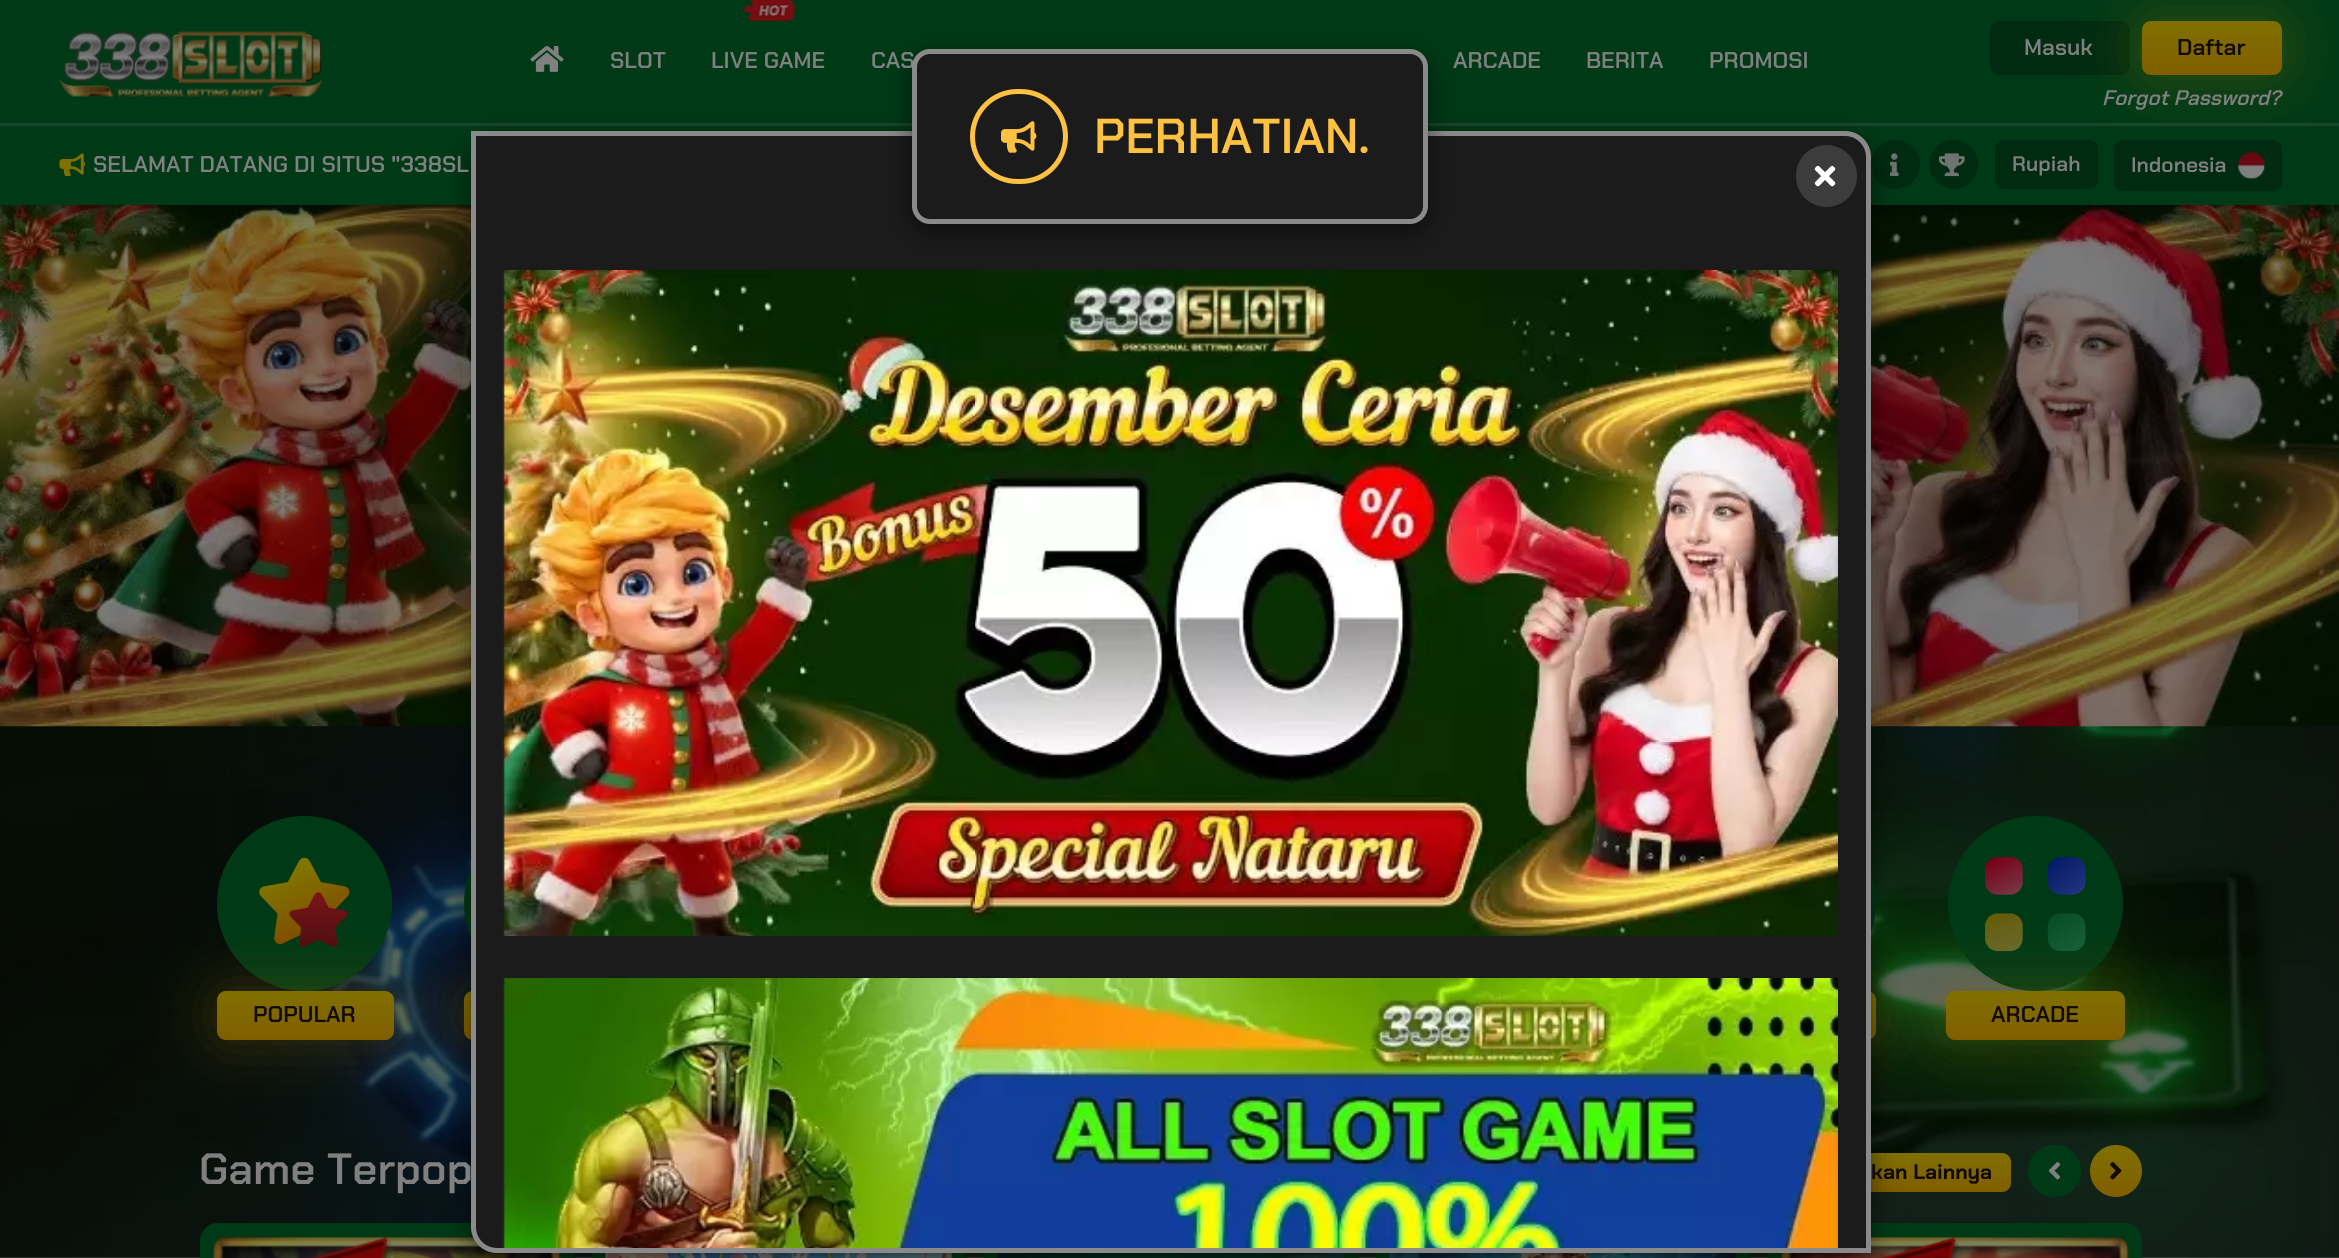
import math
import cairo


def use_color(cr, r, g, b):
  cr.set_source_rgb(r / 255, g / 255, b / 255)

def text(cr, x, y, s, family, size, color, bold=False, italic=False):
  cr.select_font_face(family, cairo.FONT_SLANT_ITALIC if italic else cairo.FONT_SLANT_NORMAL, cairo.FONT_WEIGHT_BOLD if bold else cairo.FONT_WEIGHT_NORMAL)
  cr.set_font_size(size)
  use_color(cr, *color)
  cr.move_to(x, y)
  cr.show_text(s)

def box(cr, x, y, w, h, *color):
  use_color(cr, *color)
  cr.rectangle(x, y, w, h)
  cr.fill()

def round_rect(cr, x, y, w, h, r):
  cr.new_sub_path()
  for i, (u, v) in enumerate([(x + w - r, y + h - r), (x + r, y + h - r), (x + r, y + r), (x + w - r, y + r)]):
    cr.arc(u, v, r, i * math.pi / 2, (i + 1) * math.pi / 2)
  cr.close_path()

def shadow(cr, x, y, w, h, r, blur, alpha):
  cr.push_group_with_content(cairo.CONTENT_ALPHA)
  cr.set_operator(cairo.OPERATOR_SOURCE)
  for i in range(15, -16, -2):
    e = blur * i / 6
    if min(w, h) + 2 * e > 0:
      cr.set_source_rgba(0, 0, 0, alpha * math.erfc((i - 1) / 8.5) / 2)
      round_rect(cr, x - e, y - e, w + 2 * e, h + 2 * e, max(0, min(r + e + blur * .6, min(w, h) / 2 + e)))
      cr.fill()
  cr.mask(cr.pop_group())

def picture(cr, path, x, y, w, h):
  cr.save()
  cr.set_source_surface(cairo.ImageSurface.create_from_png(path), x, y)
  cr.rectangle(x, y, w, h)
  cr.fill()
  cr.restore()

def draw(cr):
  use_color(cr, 255, 255, 255)
  cr.paint()
  picture(cr, "img_12.png", 0, 726, 2339, 532)
  picture(cr, "img_13.png", 0, 205, 2339, 522)
  use_color(cr, 0, 0, 0)
  shadow(cr, -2, 2, 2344, 208, 0, 8, 0.4)
  box(cr, 0, 0, 2339, 123, 0, 57, 22)
  box(cr, 0, 123, 2339, 3, 26, 71, 43)
  picture(cr, "img_01.png", 58, 29, 264, 68)
  picture(cr, "img_02.png", 530, 46, 34, 26)
  picture(cr, "img_03.png", 742, 0, 53, 21)
  use_color(cr, 0, 43, 16)
  round_rect(cr, 1990, 21, 140, 54, 9)
  cr.fill()
  box(cr, 0, 126, 2339, 79, 0, 57, 22)
  use_color(cr, 128, 111, 0)
  shadow(cr, 2142, 21, 140, 54, 9, 30.5, 0.4)
  gradient = cairo.LinearGradient(2212, 21, 2212, 75)
  gradient.add_color_stop_rgba(0, 0.502, 0.439, 0, 1)
  gradient.add_color_stop_rgba(1, 0.502, 0.369, 0, 1)
  cr.set_source(gradient)
  round_rect(cr, 2142, 21, 140, 54, 9)
  cr.fill()
  picture(cr, "img_04.png", 59, 153, 27, 24)
  use_color(cr, 0, 43, 16)
  cr.arc(1895.5, 164.5, 24.5, 0, 2 * math.pi)
  cr.fill()
  picture(cr, "img_05.png", 1890, 153, 9, 24)
  cr.arc(1953.5, 164.5, 24.5, 0, 2 * math.pi)
  cr.fill()
  picture(cr, "img_06.png", 1939, 153, 26, 24)
  round_rect(cr, 1995, 140, 103, 49, 9)
  cr.fill()
  round_rect(cr, 2114, 140, 168, 51, 9)
  cr.fill()
  picture(cr, "img_07.png", 2238, 152, 27, 27)
  use_color(cr, 0, 57, 22)
  cr.arc(304.5, 903.5, 87.5, 0, 2 * math.pi)
  cr.fill()
  use_color(cr, 128, 100, 0)
  shadow(cr, 217, 991, 177, 49, 9, 30.5, 0.4)
  use_color(cr, 0, 57, 22)
  cr.arc(551.5, 903.5, 87.5, 0, 2 * math.pi)
  cr.fill()
  gradient = cairo.LinearGradient(305, 991, 305, 1040)
  gradient.add_color_stop_rgba(0, 0.502, 0.439, 0, 1)
  gradient.add_color_stop_rgba(1, 0.502, 0.369, 0, 1)
  cr.set_source(gradient)
  round_rect(cr, 217, 991, 177, 49, 9)
  cr.fill()
  use_color(cr, 128, 100, 0)
  shadow(cr, 464, 991, 177, 49, 9, 30.5, 0.4)
  gradient = cairo.LinearGradient(552, 991, 552, 1040)
  gradient.add_color_stop_rgba(0, 0.502, 0.439, 0, 1)
  gradient.add_color_stop_rgba(1, 0.502, 0.369, 0, 1)
  cr.set_source(gradient)
  round_rect(cr, 464, 991, 177, 49, 9)
  cr.fill()
  use_color(cr, 0, 57, 22)
  cr.arc(1788.5, 903.5, 87.5, 0, 2 * math.pi)
  cr.fill()
  use_color(cr, 128, 100, 0)
  shadow(cr, 1699, 991, 177, 49, 9, 30.5, 0.4)
  gradient = cairo.LinearGradient(1788, 991, 1788, 1040)
  gradient.add_color_stop_rgba(0, 0.502, 0.439, 0, 1)
  gradient.add_color_stop_rgba(1, 0.502, 0.369, 0, 1)
  cr.set_source(gradient)
  round_rect(cr, 1699, 991, 177, 49, 9)
  cr.fill()
  gradient = cairo.LinearGradient(1899, 1153, 1899, 1192)
  gradient.add_color_stop_rgba(0, 0.502, 0.439, 0, 1)
  gradient.add_color_stop_rgba(1, 0.502, 0.369, 0, 1)
  cr.set_source(gradient)
  round_rect(cr, 1787, 1153, 224, 39, 9)
  cr.fill()
  use_color(cr, 0, 57, 22)
  cr.new_path()
  cr.move_to(218, 1223)
  cr.line_to(556, 1223)
  cr.curve_to(566, 1223, 574, 1231, 574, 1241)
  cr.line_to(574, 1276)
  cr.line_to(200, 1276)
  cr.line_to(200, 1241)
  cr.curve_to(200, 1231, 208, 1223, 218, 1223)
  cr.close_path()
  cr.fill()
  picture(cr, "img_18.png", 213, 1237, 348, 21)
  box(cr, 592, 1253, 374, 5, 0, 57, 22)
  picture(cr, "img_19.png", 605, 1253, 348, 5)
  box(cr, 984, 1253, 374, 5, 0, 57, 22)
  picture(cr, "img_20.png", 997, 1253, 348, 5)
  box(cr, 1376, 1253, 374, 5, 0, 57, 22)
  picture(cr, "img_21.png", 1389, 1253, 348, 5)
  cr.new_path()
  cr.move_to(1786, 1223)
  cr.line_to(2124, 1223)
  cr.curve_to(2134, 1223, 2142, 1231, 2142, 1241)
  cr.line_to(2142, 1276)
  cr.line_to(1768, 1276)
  cr.line_to(1768, 1241)
  cr.curve_to(1768, 1231, 1776, 1223, 1786, 1223)
  cr.close_path()
  cr.fill()
  picture(cr, "img_22.png", 1781, 1237, 348, 21)
  use_color(cr, 0, 0, 0)
  shadow(cr, 471, 140, 1400, 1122, 26, 13, 0.5)
  use_color(cr, 0, 57, 22)
  cr.arc(2035.5, 903.5, 87.5, 0, 2 * math.pi)
  cr.fill()
  use_color(cr, 128, 100, 0)
  shadow(cr, 1946, 991, 179, 49, 9, 30.5, 0.4)
  use_color(cr, 27, 27, 27)
  cr.new_path()
  cr.move_to(473.5, 133.5)
  cr.line_to(1845, 133.5)
  cr.curve_to(1858, 133.5, 1868.5, 144, 1868.5, 157)
  cr.line_to(1868.5, 1250.5)
  cr.line_to(497, 1250.5)
  cr.curve_to(484, 1250.5, 473.5, 1240, 473.5, 1227)
  cr.close_path()
  cr.fill_preserve()
  use_color(cr, 138, 138, 138)
  cr.set_line_width(5)
  cr.stroke()
  use_color(cr, 0, 0, 0)
  shadow(cr, 912, 58, 516, 175, 18, 13, 0.5)
  use_color(cr, 60, 60, 60)
  round_rect(cr, 1796, 145, 61, 62, 30.5)
  cr.fill()
  picture(cr, "img_09.png", 1814, 165, 22, 22)
  picture(cr, "img_10.png", 502, 270, 1336, 666)
  picture(cr, "img_11.png", 502, 978, 1336, 270)
  picture(cr, "img_14.png", 259, 857, 91, 90)
  picture(cr, "img_15.png", 1985, 857, 101, 95)
  gradient = cairo.LinearGradient(2035, 991, 2035, 1040)
  gradient.add_color_stop_rgba(0, 0.502, 0.439, 0, 1)
  gradient.add_color_stop_rgba(1, 0.502, 0.369, 0, 1)
  cr.set_source(gradient)
  round_rect(cr, 1946, 991, 179, 49, 9)
  cr.fill()
  use_color(cr, 0, 57, 22)
  round_rect(cr, 2028, 1145, 53, 52, 26)
  cr.fill()
  picture(cr, "img_16.png", 2048, 1162, 13, 18)
  gradient = cairo.LinearGradient(2116, 1145, 2116, 1197)
  gradient.add_color_stop_rgba(0, 0.502, 0.439, 0, 1)
  gradient.add_color_stop_rgba(1, 0.502, 0.369, 0, 1)
  cr.set_source(gradient)
  cr.arc(2116, 1171, 26, 0, 2 * math.pi)
  cr.fill()
  picture(cr, "img_17.png", 2110, 1162, 12, 18)
  text(cr, 610, 68, "SLOT", "Chakra Petch SemiBold", 22.75, (128, 128, 128))
  text(cr, 711, 68, "LIVE GAME", "Chakra Petch SemiBold", 22.75, (128, 128, 128))
  text(cr, 871, 68, "CAS", "Chakra Petch SemiBold", 22.75, (128, 128, 128))
  text(cr, 1453, 68, "ARCADE", "Chakra Petch SemiBold", 22.75, (128, 128, 128))
  text(cr, 1586, 68, "BERITA", "Chakra Petch SemiBold", 22.75, (128, 128, 128))
  text(cr, 1709, 68, "PROMOSI", "Chakra Petch SemiBold", 22.75, (128, 128, 128))
  text(cr, 2024, 55, "Masuk", "Chakra Petch SemiBold", 22.75, (128, 128, 128))
  text(cr, 2177, 55, "Daftar", "Chakra Petch SemiBold", 22.75, (17, 9, 6))
  text(cr, 2102, 105, "Forgot Password?", "Chakra Petch SemiBold", 21, (128, 128, 128), italic=True)
  text(cr, 93, 172, "SELAMAT DATANG DI SITUS \"338SL", "Chakra Petch SemiBold", 22.75, (128, 128, 128))
  text(cr, 2012, 171, "Rupiah", "Chakra Petch SemiBold", 21, (128, 128, 128))
  text(cr, 2131, 172, "Indonesia", "Chakra Petch SemiBold", 21, (128, 128, 128))
  use_color(cr, 27, 27, 27)
  round_rect(cr, 914.5, 51.5, 511, 170, 15.5)
  cr.fill_preserve()
  use_color(cr, 138, 138, 138)
  cr.stroke()
  round_rect(cr, 972.5, 91.5, 93, 90, 45)
  use_color(cr, 255, 193, 65)
  cr.stroke()
  picture(cr, "img_08.png", 1001, 121, 36, 32)
  text(cr, 1094, 153, "PERHATIAN.", "Chakra Petch SemiBold", 49, (255, 193, 65))
  text(cr, 253, 1022, "POPULAR", "Chakra Petch SemiBold", 22.75, (17, 9, 6))
  text(cr, 1991, 1022, "ARCADE", "Chakra Petch SemiBold", 22.75, (17, 9, 6))
  text(cr, 199, 1184, "Game Terpop", "Chakra Petch SemiBold", 43.75, (128, 128, 128))
  text(cr, 1871, 1179, "kan Lainnya", "Chakra Petch", 21, (17, 9, 6), bold=True)


surface = cairo.ImageSurface(cairo.FORMAT_RGB24, 2339, 1258)
cr = cairo.Context(surface)
options = cairo.FontOptions()
options.set_hint_metrics(cairo.HINT_METRICS_OFF)
options.set_hint_style(cairo.HINT_STYLE_NONE)
cr.set_font_options(options)
cr.set_miter_limit(4)
draw(cr)
surface.write_to_png("out.png")
